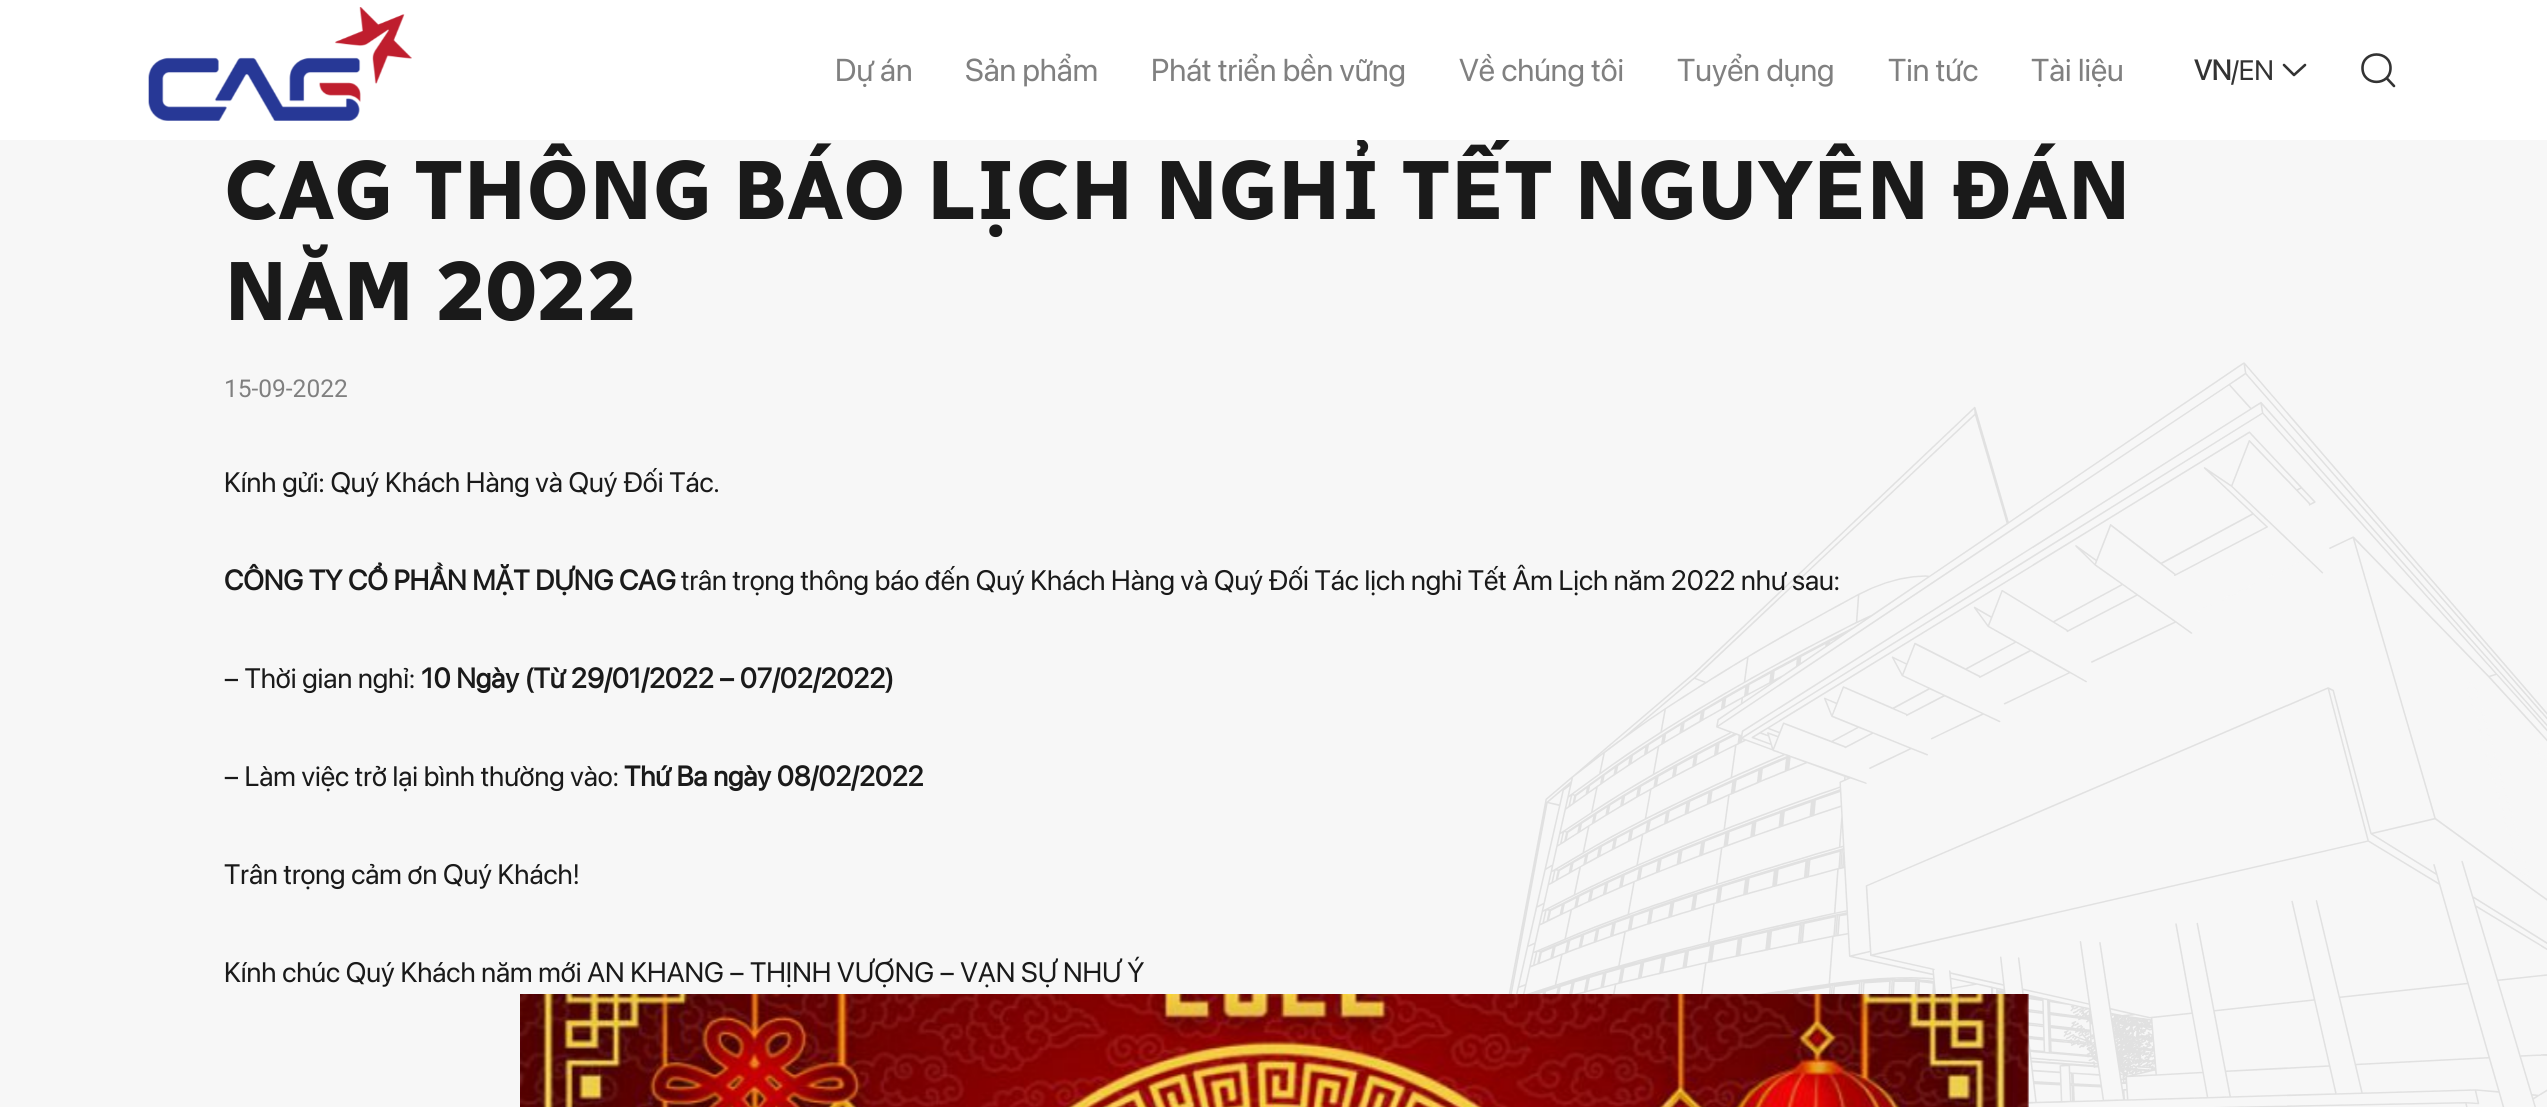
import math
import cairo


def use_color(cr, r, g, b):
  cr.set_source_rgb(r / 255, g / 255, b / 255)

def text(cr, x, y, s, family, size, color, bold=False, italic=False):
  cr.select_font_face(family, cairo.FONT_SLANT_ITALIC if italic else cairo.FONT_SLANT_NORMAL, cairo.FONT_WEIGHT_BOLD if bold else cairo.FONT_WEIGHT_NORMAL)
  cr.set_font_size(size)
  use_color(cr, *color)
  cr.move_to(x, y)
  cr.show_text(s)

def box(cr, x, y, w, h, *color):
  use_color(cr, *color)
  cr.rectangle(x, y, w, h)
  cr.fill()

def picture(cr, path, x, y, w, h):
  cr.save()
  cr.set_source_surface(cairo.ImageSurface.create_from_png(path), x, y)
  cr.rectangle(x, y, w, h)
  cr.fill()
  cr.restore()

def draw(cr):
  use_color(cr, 255, 255, 255)
  cr.paint()
  picture(cr, "img_01.png", 148, 7, 264, 114)
  cr.new_path()
  cr.move_to(2284, 65)
  cr.line_to(2294, 75)
  cr.line_to(2305, 65)
  use_color(cr, 51, 51, 51)
  cr.set_line_width(2.6)
  cr.set_line_cap(cairo.LINE_CAP_ROUND)
  cr.set_line_join(cairo.LINE_JOIN_ROUND)
  cr.stroke()
  cr.new_path()
  cr.move_to(2394, 86)
  cr.line_to(2386.5, 78)
  cr.move_to(2390.5, 68)
  cr.curve_to(2390.5, 86.5, 2362.5, 86.5, 2362.5, 68)
  cr.curve_to(2362.5, 50, 2390.5, 50, 2390.5, 68)
  cr.close_path()
  cr.stroke()
  box(cr, 0, 140, 2547, 967, 247, 247, 247)
  picture(cr, "img_02.png", 1508, 362, 1039, 745)
  picture(cr, "img_03.png", 520, 994, 1509, 113)
  text(cr, 835, 81, "Dự án", "SF Pro Display", 31.5, (128, 128, 128))
  text(cr, 965, 81, "Sản phẩm", "SF Pro Display", 31.5, (128, 128, 128))
  text(cr, 1151, 81, "Phát triển bền vững", "SF Pro Display", 31.5, (128, 128, 128))
  text(cr, 1459, 81, "Về chúng tôi", "SF Pro Display", 31.5, (128, 128, 128))
  text(cr, 1677, 81, "Tuyển dụng", "SF Pro Display", 31.5, (128, 128, 128))
  text(cr, 1888, 81, "Tin tức", "SF Pro Display", 31.5, (128, 128, 128))
  text(cr, 2031, 81, "Tài liệu", "SF Pro Display", 31.5, (128, 128, 128))
  text(cr, 2194, 80, "VN", "SF Pro Display", 28, (51, 51, 51), bold=True)
  text(cr, 2231, 80, "/EN", "SF Pro Display", 28, (51, 51, 51))
  cr.save()
  cr.rectangle(0, 140, 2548, 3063)
  cr.clip()
  text(cr, 224, 219, "CAG THÔNG BÁO LỊCH NGHỈ TẾT NGUYÊN ĐÁN", "Radio Canada", 84, (26, 26, 26), bold=True)
  cr.restore()
  text(cr, 224, 320, "NĂM 2022", "Radio Canada", 84, (26, 26, 26), bold=True)
  text(cr, 224, 397, "15-09-2022", "Roboto", 24.5, (128, 128, 128))
  text(cr, 224, 492, "Kính gửi: Quý Khách Hàng và Quý Đối Tác.", "SF Pro Display", 28, (26, 26, 26))
  text(cr, 224, 590, "CÔNG TY CỔ PHẦN MẶT DỰNG CAG", "SF Pro Display", 28, (26, 26, 26), bold=True)
  text(cr, 681, 590, "trân trọng thông báo đến Quý Khách Hàng và Quý Đối Tác lịch nghỉ Tết Âm Lịch năm 2022 như sau:", "SF Pro Display", 28, (26, 26, 26))
  text(cr, 224, 688, "– Thời gian nghỉ:", "SF Pro Display", 28, (26, 26, 26))
  text(cr, 421, 688, "10 Ngày (Từ 29/01/2022 – 07/02/2022)", "SF Pro Display", 28, (26, 26, 26), bold=True)
  text(cr, 224, 786, "– Làm việc trở lại bình thường vào:", "SF Pro Display", 28, (26, 26, 26))
  text(cr, 624, 786, "Thứ Ba ngày 08/02/2022", "SF Pro Display", 28, (26, 26, 26), bold=True)
  text(cr, 224, 884, "Trân trọng cảm ơn Quý Khách!", "SF Pro Display", 28, (26, 26, 26))
  text(cr, 224, 982, "Kính chúc Quý Khách năm mới AN KHANG – THỊNH VƯỢNG – VẠN SỰ NHƯ Ý", "SF Pro Display", 28, (26, 26, 26))


surface = cairo.ImageSurface(cairo.FORMAT_RGB24, 2547, 1107)
cr = cairo.Context(surface)
options = cairo.FontOptions()
options.set_hint_metrics(cairo.HINT_METRICS_OFF)
options.set_hint_style(cairo.HINT_STYLE_NONE)
cr.set_font_options(options)
cr.set_miter_limit(4)
draw(cr)
surface.write_to_png("out.png")
